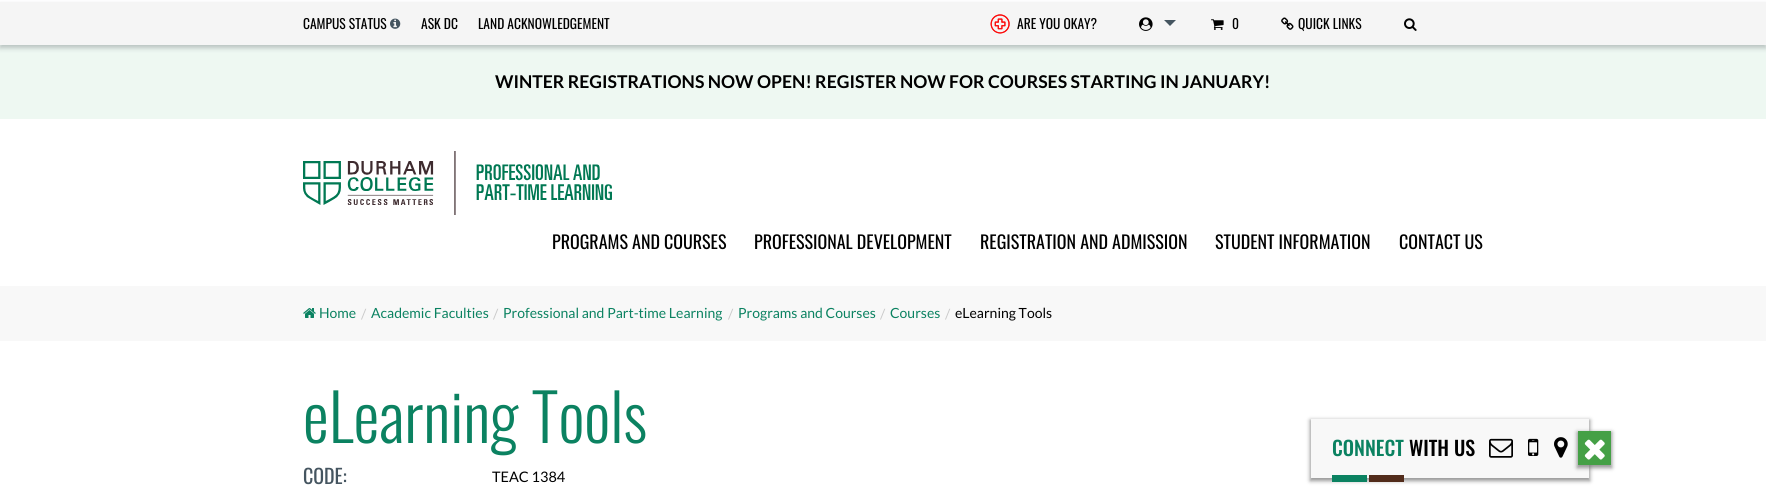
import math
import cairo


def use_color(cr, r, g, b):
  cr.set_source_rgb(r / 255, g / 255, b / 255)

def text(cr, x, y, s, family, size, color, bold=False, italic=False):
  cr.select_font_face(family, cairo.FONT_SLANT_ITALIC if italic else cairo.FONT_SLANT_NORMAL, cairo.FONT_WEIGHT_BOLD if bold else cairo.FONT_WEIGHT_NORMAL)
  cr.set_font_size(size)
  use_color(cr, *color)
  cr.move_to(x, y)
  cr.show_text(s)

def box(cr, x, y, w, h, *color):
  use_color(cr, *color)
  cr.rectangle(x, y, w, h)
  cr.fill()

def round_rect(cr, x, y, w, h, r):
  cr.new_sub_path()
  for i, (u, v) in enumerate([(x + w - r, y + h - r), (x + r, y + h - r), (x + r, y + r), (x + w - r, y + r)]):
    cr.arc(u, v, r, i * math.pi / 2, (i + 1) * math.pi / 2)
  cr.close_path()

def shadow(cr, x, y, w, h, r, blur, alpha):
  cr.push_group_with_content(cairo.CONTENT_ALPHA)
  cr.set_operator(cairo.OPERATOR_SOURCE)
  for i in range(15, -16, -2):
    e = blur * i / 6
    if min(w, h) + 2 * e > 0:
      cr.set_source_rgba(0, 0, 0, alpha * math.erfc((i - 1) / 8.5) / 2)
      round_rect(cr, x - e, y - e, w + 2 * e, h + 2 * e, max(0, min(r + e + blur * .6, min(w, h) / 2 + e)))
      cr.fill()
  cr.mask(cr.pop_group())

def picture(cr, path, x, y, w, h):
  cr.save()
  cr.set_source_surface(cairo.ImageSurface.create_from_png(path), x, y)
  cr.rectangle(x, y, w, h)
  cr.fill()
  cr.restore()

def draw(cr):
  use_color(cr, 255, 255, 255)
  cr.paint()
  box(cr, 0, 45, 1766, 74, 238, 248, 242)
  use_color(cr, 57, 63, 72)
  shadow(cr, 0, 5, 1766, 43, 0, 2.5, 0.3)
  box(cr, 0, 2, 1766, 43, 245, 245, 245)
  picture(cr, "img_01.png", 390, 18, 11, 11)
  picture(cr, "img_02.png", 990, 14, 20, 20)
  picture(cr, "img_03.png", 1139, 17, 14, 14)
  use_color(cr, 69, 85, 96)
  cr.new_path()
  cr.move_to(1164, 20)
  cr.line_to(1176, 20)
  cr.line_to(1170, 26)
  cr.close_path()
  cr.fill()
  picture(cr, "img_04.png", 1211, 19, 13, 11)
  picture(cr, "img_05.png", 1281, 17, 13, 13)
  picture(cr, "img_06.png", 1404, 18, 13, 13)
  picture(cr, "img_07.png", 303, 151, 309, 64)
  box(cr, 0, 286, 1766, 55, 248, 248, 248)
  picture(cr, "img_08.png", 303, 308, 13, 10)
  use_color(cr, 115, 115, 115)
  shadow(cr, 1310, 420, 280, 61, 0, 2, 0.75)
  box(cr, 1311, 419, 278, 59, 248, 248, 248)
  gradient = cairo.LinearGradient(1332, 479, 1404, 479)
  gradient.add_color_stop_rgba(0, 0.043, 0.51, 0.38, 1)
  gradient.add_color_stop_rgba(0.48, 0.043, 0.51, 0.38, 1)
  gradient.add_color_stop_rgba(0.48, 0.043, 0.51, 0.38, 0)
  gradient.add_color_stop_rgba(0.52, 0.322, 0.173, 0.106, 0)
  gradient.add_color_stop_rgba(0.52, 0.322, 0.173, 0.106, 1)
  gradient.add_color_stop_rgba(1, 0.322, 0.173, 0.106, 1)
  cr.set_source(gradient)
  cr.rectangle(1332, 475, 72, 7)
  cr.fill()
  picture(cr, "img_09.png", 1489, 438, 24, 20)
  picture(cr, "img_10.png", 1528, 438, 11, 18)
  picture(cr, "img_11.png", 1554, 437, 14, 21)
  use_color(cr, 115, 115, 115)
  shadow(cr, 1577, 432, 35, 36, 0, 2, 0.75)
  box(cr, 1578, 431, 33, 34, 69, 160, 70)
  picture(cr, "img_12.png", 1584, 439, 21, 21)
  text(cr, 303, 29, "CAMPUS STATUS", "Oswald", 13.5, (0, 0, 0))
  text(cr, 421, 29, "ASK DC", "Oswald", 13.5, (0, 0, 0))
  text(cr, 478, 29, "LAND ACKNOWLEDGEMENT", "Oswald", 13.5, (0, 0, 0))
  text(cr, 1017, 29, "ARE YOU OKAY?", "Oswald", 13.5, (0, 0, 0))
  text(cr, 1232, 29, "0", "Oswald", 13.5, (0, 0, 0))
  text(cr, 1298, 29, "QUICK LINKS", "Oswald", 13.5, (0, 0, 0))
  text(cr, 495, 88, "WINTER REGISTRATIONS NOW OPEN! REGISTER NOW FOR COURSES STARTING IN JANUARY!", "Lato", 17.6, (0, 0, 0), bold=True)
  text(cr, 552, 249, "PROGRAMS AND COURSES", "Oswald", 18, (0, 0, 0))
  text(cr, 754, 249, "PROFESSIONAL DEVELOPMENT", "Oswald", 18, (0, 0, 0))
  text(cr, 980, 249, "REGISTRATION AND ADMISSION", "Oswald", 18, (0, 0, 0))
  text(cr, 1215, 249, "STUDENT INFORMATION", "Oswald", 18, (0, 0, 0))
  text(cr, 1399, 249, "CONTACT US", "Oswald", 18, (0, 0, 0))
  text(cr, 319, 318, "Home", "Lato", 14, (11, 130, 97))
  text(cr, 361, 319, "/", "Lato", 14, (202, 202, 202))
  text(cr, 371, 318, "Academic Faculties", "Lato", 14, (11, 130, 97))
  text(cr, 493, 319, "/", "Lato", 14, (202, 202, 202))
  text(cr, 503, 318, "Professional and Part-time Learning", "Lato", 14, (11, 130, 97))
  text(cr, 728, 319, "/", "Lato", 14, (202, 202, 202))
  text(cr, 738, 318, "Programs and Courses", "Lato", 14, (11, 130, 97))
  text(cr, 880, 319, "/", "Lato", 14, (202, 202, 202))
  text(cr, 890, 318, "Courses", "Lato", 14, (11, 130, 97))
  text(cr, 945, 319, "/", "Lato", 14, (202, 202, 202))
  text(cr, 955, 318, "eLearning Tools", "Lato", 14, (0, 0, 0))
  text(cr, 303, 443, "eLearning Tools", "Oswald Light", 65, (11, 130, 97))
  text(cr, 303, 484, "CODE:", "Oswald", 20, (69, 85, 96))
  text(cr, 492, 482, "TEAC 1384", "Lato", 14.5, (0, 0, 0))
  text(cr, 1332, 456, "CONNECT", "Oswald Medium", 20, (11, 130, 97))
  text(cr, 1409, 456, "WITH US", "Oswald Medium", 20, (0, 0, 0))


surface = cairo.ImageSurface(cairo.FORMAT_RGB24, 1766, 494)
cr = cairo.Context(surface)
options = cairo.FontOptions()
options.set_hint_metrics(cairo.HINT_METRICS_OFF)
options.set_hint_style(cairo.HINT_STYLE_NONE)
cr.set_font_options(options)
cr.set_miter_limit(4)
draw(cr)
surface.write_to_png("out.png")
